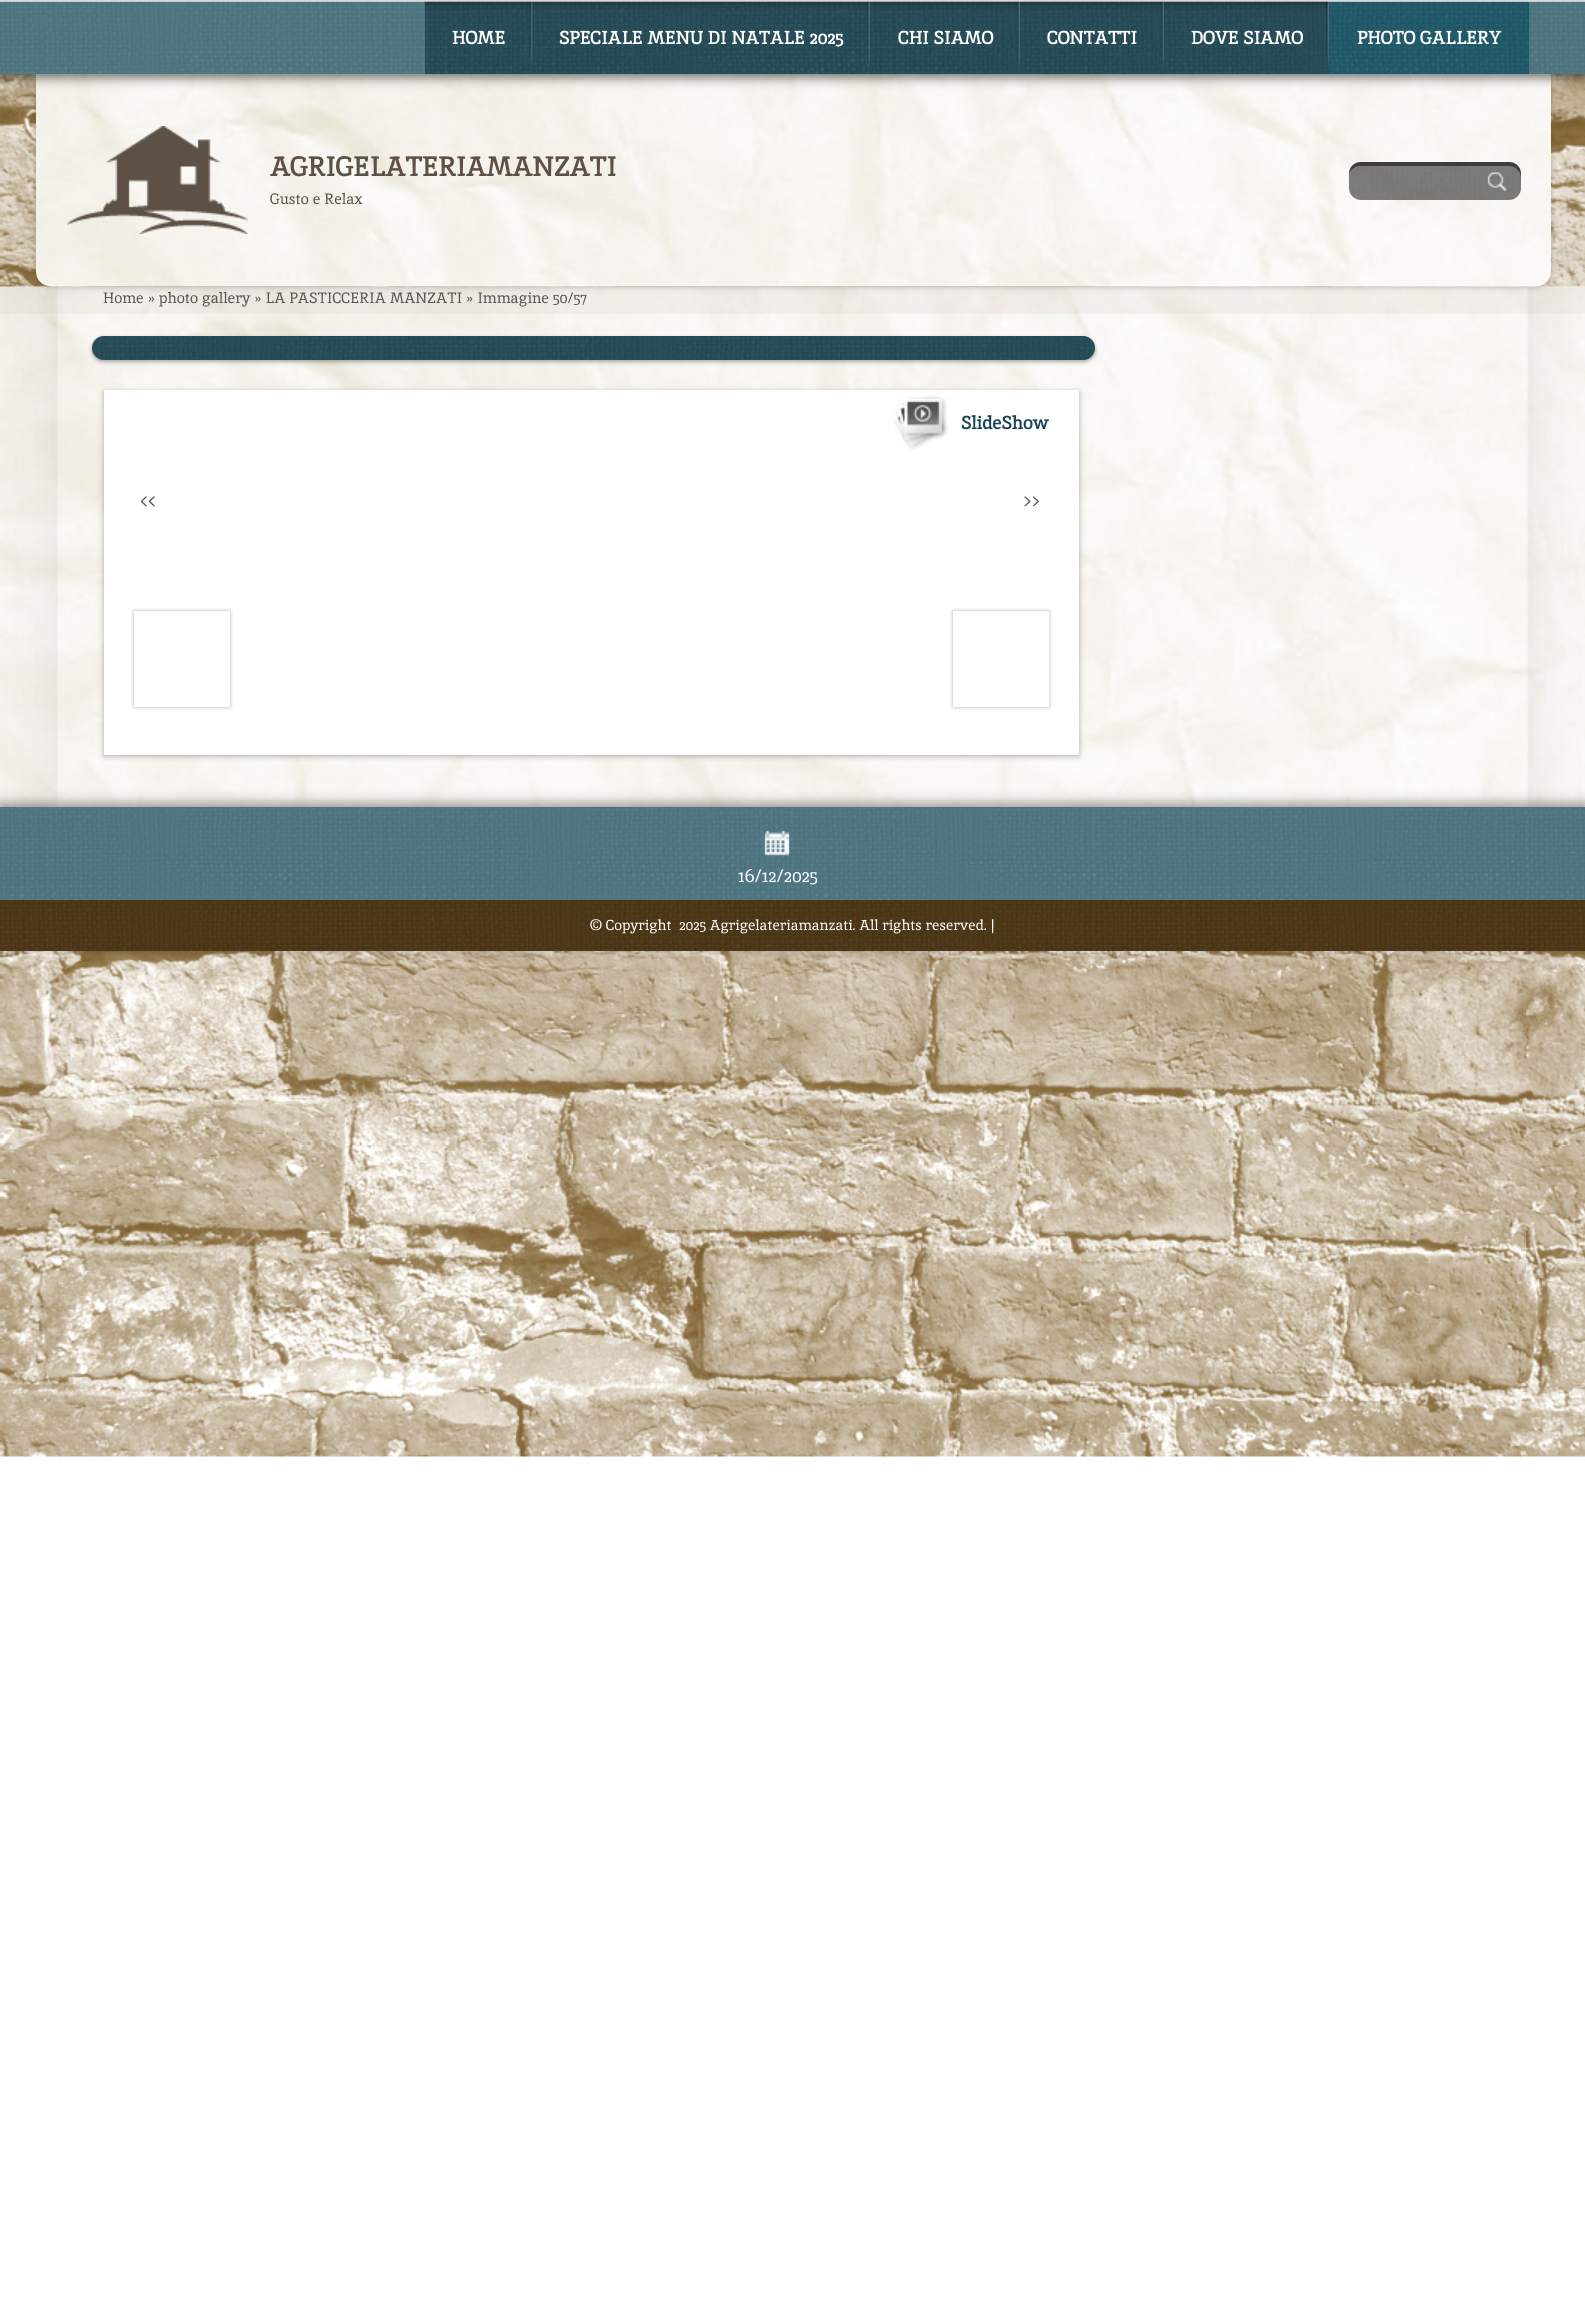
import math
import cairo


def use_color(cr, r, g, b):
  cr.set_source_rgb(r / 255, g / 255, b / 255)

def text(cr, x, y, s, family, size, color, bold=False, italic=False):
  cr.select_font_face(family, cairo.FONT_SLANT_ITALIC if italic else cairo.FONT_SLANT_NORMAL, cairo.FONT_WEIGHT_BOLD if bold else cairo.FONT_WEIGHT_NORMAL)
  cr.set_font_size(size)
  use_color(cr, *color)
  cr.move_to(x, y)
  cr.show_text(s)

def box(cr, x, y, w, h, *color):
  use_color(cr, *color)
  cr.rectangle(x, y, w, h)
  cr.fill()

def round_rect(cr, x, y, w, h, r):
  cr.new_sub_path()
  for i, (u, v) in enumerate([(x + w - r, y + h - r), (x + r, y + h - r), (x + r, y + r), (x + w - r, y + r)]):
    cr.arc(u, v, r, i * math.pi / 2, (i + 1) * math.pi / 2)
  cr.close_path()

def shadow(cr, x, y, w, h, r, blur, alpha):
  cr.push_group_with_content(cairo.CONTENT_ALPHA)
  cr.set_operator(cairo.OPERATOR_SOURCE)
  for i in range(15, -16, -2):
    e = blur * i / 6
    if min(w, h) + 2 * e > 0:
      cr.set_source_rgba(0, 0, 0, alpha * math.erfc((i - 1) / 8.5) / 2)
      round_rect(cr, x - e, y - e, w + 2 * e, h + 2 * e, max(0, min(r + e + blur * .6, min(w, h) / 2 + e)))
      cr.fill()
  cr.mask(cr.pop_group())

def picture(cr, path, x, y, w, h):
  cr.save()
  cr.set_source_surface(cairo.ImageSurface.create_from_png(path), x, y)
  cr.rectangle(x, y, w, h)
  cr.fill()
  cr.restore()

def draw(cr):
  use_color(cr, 255, 255, 255)
  cr.paint()
  picture(cr, "img_01.png", 0, 74, 1585, 1383)
  picture(cr, "img_13.png", 0, 286, 1585, 521)
  cr.set_source_rgba(0.698, 0.612, 0.561, 0.1)
  cr.rectangle(0, 287, 1585, 27)
  cr.fill()
  use_color(cr, 50, 50, 50)
  shadow(cr, 36, 74, 1515, 213, 15, 3, 0.3)
  picture(cr, "img_09.png", 36, 74, 1515, 213)
  use_color(cr, 0, 0, 0)
  shadow(cr, 0, 5, 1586, 72, 0, 6, 0.6)
  box(cr, 0, 2, 1585, 72, 73, 120, 134)
  picture(cr, "img_02.png", 0, 1, 1585, 73)
  box(cr, 425, 2, 904, 72, 23, 69, 82)
  picture(cr, "img_03.png", 424, 1, 109, 73)
  picture(cr, "img_04.png", 532, 1, 338, 73)
  picture(cr, "img_05.png", 870, 1, 150, 73)
  picture(cr, "img_06.png", 1020, 1, 144, 73)
  picture(cr, "img_07.png", 1164, 1, 165, 73)
  box(cr, 1329, 2, 200, 72, 15, 85, 105)
  picture(cr, "img_08.png", 1329, 1, 200, 73)
  picture(cr, "img_10.png", 67, 126, 181, 108)
  cr.set_source_rgba(0, 0, 0, 0.5)
  round_rect(cr, 1349, 162, 172, 38, 12)
  cr.fill()
  picture(cr, "img_11.png", 1348, 162, 173, 37)
  cr.new_path()
  cr.move_to(1360, 166)
  cr.line_to(1509, 166)
  cr.curve_to(1516, 166, 1521, 172, 1521, 178)
  cr.line_to(1521, 174)
  cr.curve_to(1521, 167, 1516, 162, 1509, 162)
  cr.line_to(1361, 162)
  cr.curve_to(1354, 162, 1349, 167, 1349, 174)
  cr.curve_to(1351, 169, 1355, 166, 1360, 166)
  cr.close_path()
  cr.fill()
  picture(cr, "img_12.png", 1487, 172, 20, 19)
  use_color(cr, 50, 50, 50)
  shadow(cr, 92, 338, 1003, 24, 12, 2, 0.4)
  use_color(cr, 23, 69, 82)
  round_rect(cr, 92, 336, 1003, 24, 12)
  cr.fill()
  picture(cr, "img_14.png", 91, 336, 1004, 24)
  use_color(cr, 50, 50, 50)
  shadow(cr, 104, 392, 975, 364, 0, 3, 0.4)
  box(cr, 104, 390, 975, 365, 255, 255, 255)
  picture(cr, "img_15.png", 893, 395, 55, 55)
  cr.save()
  cr.set_fill_rule(cairo.FILL_RULE_EVEN_ODD)
  cr.new_path()
  cr.move_to(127, 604)
  cr.line_to(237, 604)
  cr.line_to(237, 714)
  cr.line_to(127, 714)
  cr.close_path()
  cr.move_to(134, 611)
  cr.line_to(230, 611)
  cr.line_to(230, 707)
  cr.line_to(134, 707)
  cr.close_path()
  cr.clip()
  use_color(cr, 50, 50, 50)
  shadow(cr, 134, 611, 96, 96, 0, 2, 0.2)
  shadow(cr, 134, 611, 96, 96, 0, 2, 0.2)
  cr.restore()
  cr.save()
  cr.set_fill_rule(cairo.FILL_RULE_EVEN_ODD)
  cr.new_path()
  cr.move_to(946, 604)
  cr.line_to(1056, 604)
  cr.line_to(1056, 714)
  cr.line_to(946, 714)
  cr.close_path()
  cr.move_to(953, 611)
  cr.line_to(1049, 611)
  cr.line_to(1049, 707)
  cr.line_to(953, 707)
  cr.close_path()
  cr.clip()
  use_color(cr, 50, 50, 50)
  shadow(cr, 953, 611, 96, 96, 0, 2, 0.2)
  shadow(cr, 953, 611, 96, 96, 0, 2, 0.2)
  cr.restore()
  use_color(cr, 50, 50, 50)
  shadow(cr, 0, 803, 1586, 144, 0, 6, 0.5)
  box(cr, 0, 807, 1585, 93, 73, 120, 134)
  picture(cr, "img_16.png", 0, 807, 1585, 93)
  picture(cr, "img_17.png", 764, 830, 26, 26)
  box(cr, 0, 900, 1585, 51, 67, 41, 4)
  picture(cr, "img_18.png", 0, 900, 1585, 51)
  text(cr, 452, 44, "HOME", "Inika", 18, (255, 255, 255), bold=True)
  text(cr, 559, 44, "SPECIALE MENU DI NATALE 2025", "Inika", 18, (255, 255, 255), bold=True)
  text(cr, 898, 44, "CHI SIAMO", "Inika", 18, (255, 255, 255), bold=True)
  text(cr, 1047, 44, "CONTATTI", "Inika", 18, (255, 255, 255), bold=True)
  text(cr, 1191, 44, "DOVE SIAMO", "Inika", 18, (255, 255, 255), bold=True)
  text(cr, 1357, 44, "PHOTO GALLERY", "Inika", 18, (255, 255, 255), bold=True)
  text(cr, 270, 176, "AGRIGELATERIAMANZATI", "Inika", 27, (93, 81, 69), bold=True)
  text(cr, 270, 204, "Gusto e Relax", "Inika", 15, (93, 81, 69))
  text(cr, 103, 303, "Home » photo gallery » LA PASTICCERIA MANZATI » Immagine 50/57", "Inika", 15, (86, 86, 86))
  text(cr, 961, 429, "SlideShow", "Inika", 18, (23, 69, 82), bold=True)
  text(cr, 140, 506, "<<", "Inika", 18, (86, 86, 86))
  text(cr, 1023, 506, ">>", "Inika", 18, (86, 86, 86))
  text(cr, 738, 882, "16/12/2025", "Inika", 18, (255, 255, 255))
  text(cr, 590, 930, "© Copyright  2025 Agrigelateriamanzati. All rights reserved. |", "Inika", 14.4, (255, 255, 255))


surface = cairo.ImageSurface(cairo.FORMAT_RGB24, 1585, 2308)
cr = cairo.Context(surface)
options = cairo.FontOptions()
options.set_hint_metrics(cairo.HINT_METRICS_OFF)
options.set_hint_style(cairo.HINT_STYLE_NONE)
cr.set_font_options(options)
cr.set_miter_limit(4)
draw(cr)
surface.write_to_png("out.png")
